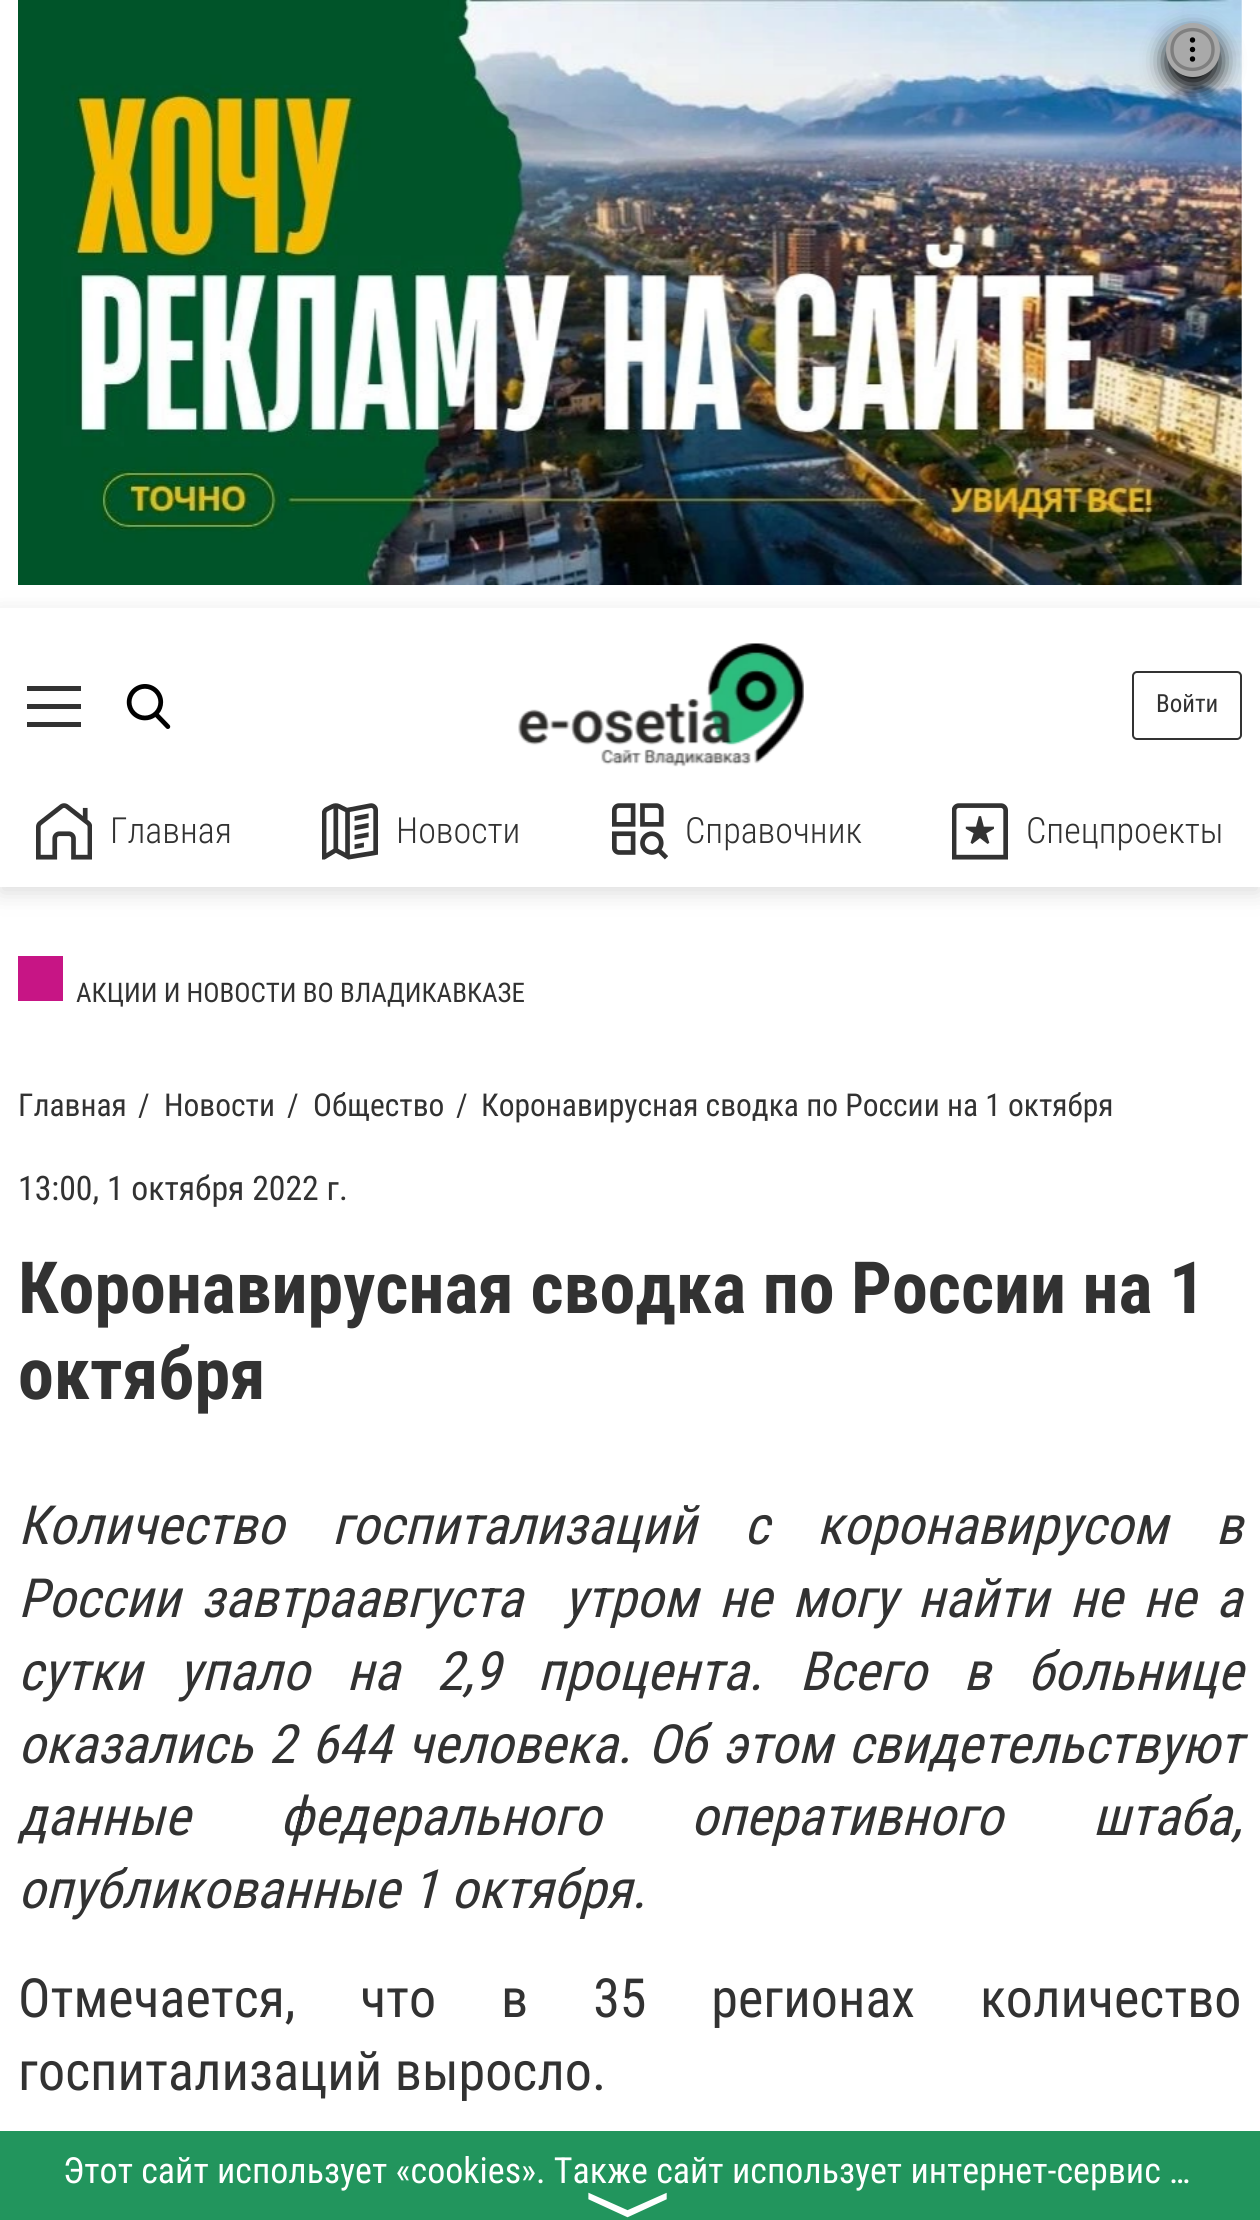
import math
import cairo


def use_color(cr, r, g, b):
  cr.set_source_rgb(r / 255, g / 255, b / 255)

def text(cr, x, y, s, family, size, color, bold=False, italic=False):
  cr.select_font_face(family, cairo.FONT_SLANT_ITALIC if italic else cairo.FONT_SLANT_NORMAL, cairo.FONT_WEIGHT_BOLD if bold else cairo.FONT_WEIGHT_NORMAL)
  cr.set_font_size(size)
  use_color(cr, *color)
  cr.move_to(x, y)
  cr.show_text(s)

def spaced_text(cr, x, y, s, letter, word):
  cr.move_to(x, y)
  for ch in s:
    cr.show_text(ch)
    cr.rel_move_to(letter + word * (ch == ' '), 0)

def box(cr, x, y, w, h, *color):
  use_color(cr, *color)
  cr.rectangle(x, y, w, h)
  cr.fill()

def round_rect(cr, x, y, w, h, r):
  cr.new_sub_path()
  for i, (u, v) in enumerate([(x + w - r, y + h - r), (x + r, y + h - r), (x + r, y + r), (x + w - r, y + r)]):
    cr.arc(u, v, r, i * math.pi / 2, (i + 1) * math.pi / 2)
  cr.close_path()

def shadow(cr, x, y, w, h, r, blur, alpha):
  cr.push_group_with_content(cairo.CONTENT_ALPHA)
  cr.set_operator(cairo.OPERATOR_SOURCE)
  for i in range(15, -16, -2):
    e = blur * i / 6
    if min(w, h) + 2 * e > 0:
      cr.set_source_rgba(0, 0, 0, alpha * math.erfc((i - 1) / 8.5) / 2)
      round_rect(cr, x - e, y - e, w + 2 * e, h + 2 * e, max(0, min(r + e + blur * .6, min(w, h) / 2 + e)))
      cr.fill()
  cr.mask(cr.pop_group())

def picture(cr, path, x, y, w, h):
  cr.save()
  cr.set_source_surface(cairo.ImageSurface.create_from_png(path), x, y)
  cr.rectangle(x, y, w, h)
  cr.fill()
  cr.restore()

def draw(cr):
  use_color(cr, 255, 255, 255)
  cr.paint()
  picture(cr, "img_01.png", 18, 0, 1224, 585)
  use_color(cr, 0, 0, 0)
  shadow(cr, 1166, 34, 54, 54, 27, 11, 1)
  use_color(cr, 169, 169, 169)
  cr.arc(1193, 50, 27, 0, 2 * math.pi)
  cr.fill()
  use_color(cr, 0, 0, 0)
  cr.arc(1192.5, 40, 2.7, 0, 2 * math.pi)
  cr.fill()
  cr.arc(1192.5, 49.5, 2.7, 0, 2 * math.pi)
  cr.fill()
  cr.arc(1192.5, 59, 2.7, 0, 2 * math.pi)
  cr.fill()
  cr.new_path()
  cr.move_to(1213, 49.5)
  cr.curve_to(1213, 23, 1172, 23, 1172, 49.5)
  cr.curve_to(1172, 76, 1213, 76, 1213, 49.5)
  cr.close_path()
  use_color(cr, 127, 127, 127)
  cr.set_line_width(3.4)
  cr.stroke()
  use_color(cr, 78, 78, 78)
  shadow(cr, 0, 614, 1260, 279, 0, 11, 0.2)
  box(cr, 0, 608, 1260, 279, 255, 255, 255)
  box(cr, 27, 704, 54, 5, 50, 50, 50)
  box(cr, 27, 686, 54, 5, 50, 50, 50)
  box(cr, 27, 722, 54, 5, 50, 50, 50)
  picture(cr, "img_02.png", 126, 684, 45, 45)
  picture(cr, "img_03.png", 518, 643, 286, 124)
  round_rect(cr, 1133, 672, 108, 67, 4)
  cr.set_line_width(2)
  cr.stroke()
  picture(cr, "img_04.png", 36, 803, 56, 57)
  picture(cr, "img_05.png", 322, 803, 56, 57)
  picture(cr, "img_06.png", 612, 803, 56, 57)
  picture(cr, "img_07.png", 952, 803, 56, 57)
  box(cr, 18, 956, 45, 45, 199, 21, 133)
  box(cr, 0, 2131, 1260, 89, 34, 149, 93)
  text(cr, 1156, 712, "Войти", "Roboto Condensed", 25, (50, 50, 50))
  text(cr, 110, 843, "Главная", "Roboto Condensed Light", 36, (50, 50, 50))
  text(cr, 396, 843, "Новости", "Roboto Condensed Light", 36, (50, 50, 50))
  text(cr, 685, 843, "Справочник", "Roboto Condensed Light", 36, (50, 50, 50))
  text(cr, 1026, 843, "Спецпроекты", "Roboto Condensed Light", 36, (50, 50, 50))
  text(cr, 76, 1002, "АКЦИИ И НОВОСТИ ВО ВЛАДИКАВКАЗЕ", "Roboto Condensed", 27, (50, 50, 50))
  text(cr, 18, 1116, "Главная", "Roboto Condensed", 31.5, (50, 50, 50))
  text(cr, 138, 1116, "/", "Roboto Condensed", 31.5, (50, 50, 50))
  text(cr, 164, 1116, "Новости", "Roboto Condensed", 31.5, (50, 50, 50))
  text(cr, 287, 1116, "/", "Roboto Condensed", 31.5, (50, 50, 50))
  text(cr, 313, 1116, "Общество", "Roboto Condensed", 31.5, (50, 50, 50))
  text(cr, 456, 1116, "/", "Roboto Condensed", 31.5, (50, 50, 50))
  text(cr, 481, 1116, "Коронавирусная сводка по России на 1 октября", "Roboto Condensed", 31.5, (50, 50, 50))
  text(cr, 18, 1200, "13:00, 1 октября 2022 г.", "Roboto Condensed", 33.75, (50, 50, 50))
  text(cr, 18, 1313, "Коронавирусная сводка по России на 1", "Roboto Condensed", 72, (50, 50, 50), bold=True)
  text(cr, 18, 1399, "октября", "Roboto Condensed", 72, (50, 50, 50), bold=True)
  cr.select_font_face("Roboto Condensed", cairo.FONT_SLANT_ITALIC)
  cr.set_font_size(54)
  spaced_text(cr, 18, 1544, "Количество госпитализаций с коронавирусом в", 0, 35.5)
  spaced_text(cr, 18, 1617, "России завтраавгуста  утром не могу найти не не а", 0, 8.25)
  spaced_text(cr, 18, 1690, "сутки упало на 2,9 процента. Всего в больнице", 0, 24.5)
  spaced_text(cr, 18, 1763, "оказались 2 644 человека. Об этом свидетельствуют", 0, 3.5)
  spaced_text(cr, 18, 1835, "данные федерального оперативного штаба,", 0, 77.5)
  text(cr, 18, 1908, "опубликованные 1 октября.", "Roboto Condensed", 54, (50, 50, 50), italic=True)
  cr.select_font_face("Roboto Condensed")
  spaced_text(cr, 18, 2017, "Отмечается, что в 35 регионах количество", 0, 52.5)
  text(cr, 18, 2090, "госпитализаций выросло.", "Roboto Condensed", 54, (50, 50, 50))
  text(cr, 63, 2183, "Этот сайт использует «cookies». Также сайт использует интернет-сервис …", "Roboto Condensed", 36, (255, 255, 255))
  cr.save()
  cr.translate(601, 2190)
  cr.rotate(90 * math.pi / 180)
  text(cr, 0, 0, "〉", "FreeSans", 90, (255, 255, 255))
  cr.restore()


surface = cairo.ImageSurface(cairo.FORMAT_RGB24, 1260, 2220)
cr = cairo.Context(surface)
options = cairo.FontOptions()
options.set_hint_metrics(cairo.HINT_METRICS_OFF)
options.set_hint_style(cairo.HINT_STYLE_NONE)
cr.set_font_options(options)
cr.set_miter_limit(4)
draw(cr)
surface.write_to_png("out.png")
